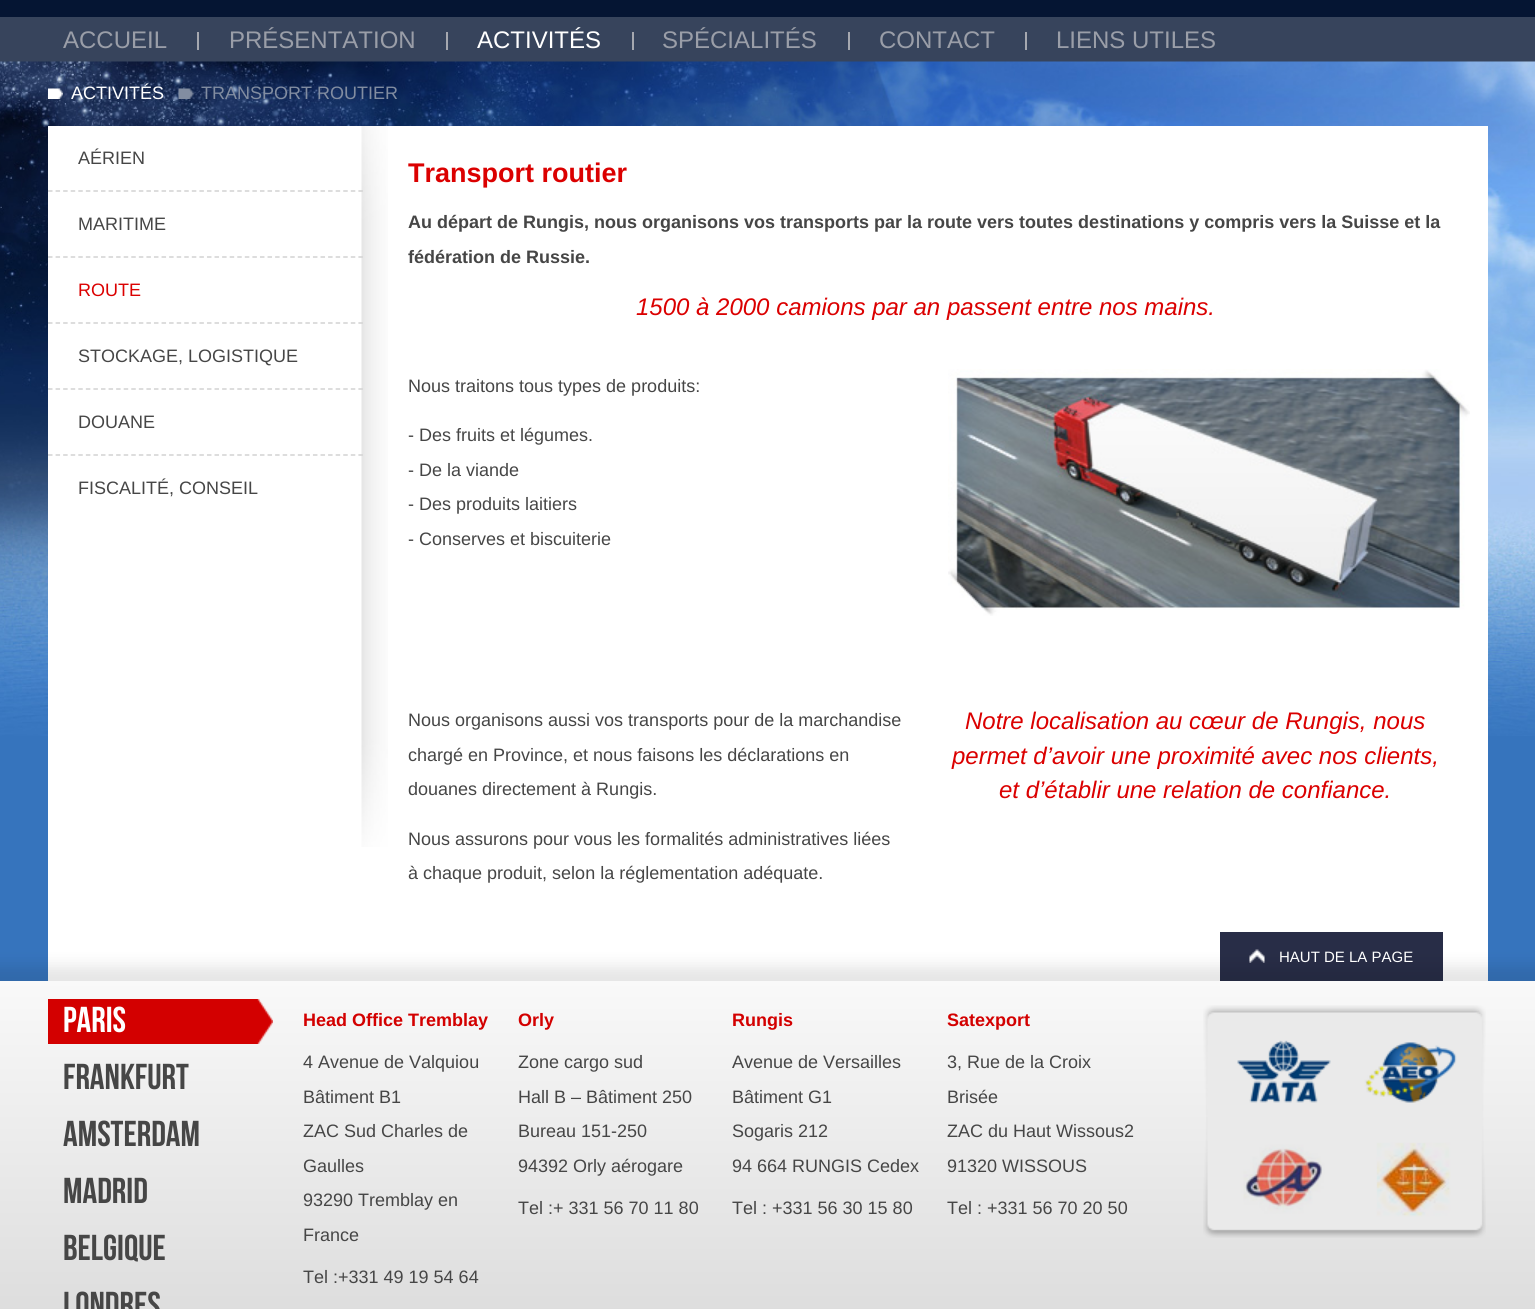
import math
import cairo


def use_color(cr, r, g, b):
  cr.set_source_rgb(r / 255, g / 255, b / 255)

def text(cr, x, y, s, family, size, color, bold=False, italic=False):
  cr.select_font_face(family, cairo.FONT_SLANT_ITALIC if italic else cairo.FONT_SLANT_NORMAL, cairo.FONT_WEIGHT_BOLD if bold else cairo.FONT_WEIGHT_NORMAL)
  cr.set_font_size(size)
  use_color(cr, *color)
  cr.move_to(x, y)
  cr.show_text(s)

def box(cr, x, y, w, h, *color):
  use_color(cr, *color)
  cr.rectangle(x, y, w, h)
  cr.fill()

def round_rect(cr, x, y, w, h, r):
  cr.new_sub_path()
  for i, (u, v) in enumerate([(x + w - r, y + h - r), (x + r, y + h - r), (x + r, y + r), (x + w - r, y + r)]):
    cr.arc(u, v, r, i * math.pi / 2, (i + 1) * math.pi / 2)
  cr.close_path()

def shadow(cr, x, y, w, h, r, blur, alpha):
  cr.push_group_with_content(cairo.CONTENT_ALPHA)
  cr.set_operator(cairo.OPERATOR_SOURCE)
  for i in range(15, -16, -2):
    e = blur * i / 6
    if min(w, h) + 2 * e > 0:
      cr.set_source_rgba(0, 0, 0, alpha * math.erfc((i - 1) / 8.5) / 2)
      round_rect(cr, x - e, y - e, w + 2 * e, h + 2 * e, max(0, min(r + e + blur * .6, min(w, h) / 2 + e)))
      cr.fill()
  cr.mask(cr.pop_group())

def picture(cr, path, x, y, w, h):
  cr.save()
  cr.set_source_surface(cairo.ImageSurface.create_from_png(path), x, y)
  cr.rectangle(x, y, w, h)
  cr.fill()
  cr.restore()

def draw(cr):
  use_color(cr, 5, 21, 51)
  cr.paint()
  box(cr, 0, 17, 1535, 45, 55, 68, 92)
  box(cr, 197, 32, 2, 18, 165, 168, 175)
  box(cr, 446, 32, 2, 18, 165, 168, 175)
  box(cr, 632, 32, 2, 18, 165, 168, 175)
  box(cr, 848, 32, 2, 18, 165, 168, 175)
  box(cr, 1025, 32, 2, 18, 165, 168, 175)
  box(cr, 0, 736, 1535, 245, 54, 116, 189)
  picture(cr, "img_01.png", 0, 61, 1535, 675)
  picture(cr, "img_02.png", 48, 88, 15, 11)
  picture(cr, "img_03.png", 178, 88, 16, 11)
  box(cr, 48, 126, 1440, 855, 255, 255, 255)
  picture(cr, "img_04.png", 361, 126, 27, 721)
  cr.new_path()
  cr.move_to(48, 191)
  cr.line_to(363, 191)
  use_color(cr, 210, 210, 210)
  cr.set_line_width(1.5)
  cr.set_dash([4.5, 3.07])
  cr.stroke()
  cr.new_path()
  cr.move_to(48, 257)
  cr.line_to(363, 257)
  cr.stroke()
  cr.new_path()
  cr.move_to(48, 323)
  cr.line_to(363, 323)
  cr.stroke()
  cr.new_path()
  cr.move_to(48, 389)
  cr.line_to(363, 389)
  cr.stroke()
  cr.new_path()
  cr.move_to(48, 455)
  cr.line_to(363, 455)
  cr.stroke()
  picture(cr, "img_05.png", 948, 369, 522, 247)
  box(cr, 1220, 932, 223, 49, 40, 45, 71)
  picture(cr, "img_06.png", 1249, 949, 16, 14)
  use_color(cr, 0, 0, 0)
  shadow(cr, -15, 966, 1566, 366, 0, 7.5, 0.1)
  gradient = cairo.LinearGradient(768, 981, 768, 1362)
  gradient.add_color_stop_rgba(0, 0.976, 0.976, 0.976, 1)
  gradient.add_color_stop_rgba(1, 0.851, 0.851, 0.851, 1)
  cr.set_source(gradient)
  cr.rectangle(0, 981, 1535, 328)
  cr.fill()
  picture(cr, "img_07.png", 48, 999, 225, 45)
  picture(cr, "img_08.png", 1203, 1005, 283, 233)
  text(cr, 63, 48, "ACCUEIL", "Liberation Sans", 24, (154, 158, 168))
  text(cr, 229, 48, "PRÉSENTATION", "Liberation Sans", 24, (154, 158, 168))
  text(cr, 477, 48, "ACTIVITÉS", "Liberation Sans", 24, (255, 255, 255))
  text(cr, 662, 48, "SPÉCIALITÉS", "Liberation Sans", 24, (154, 158, 168))
  text(cr, 879, 48, "CONTACT", "Liberation Sans", 24, (154, 158, 168))
  text(cr, 1056, 48, "LIENS UTILES", "Liberation Sans", 24, (154, 158, 168))
  text(cr, 71, 99, "ACTIVITÉS", "Liberation Sans", 18, (255, 255, 255))
  text(cr, 201, 99, "TRANSPORT ROUTIER", "Liberation Sans", 18, (130, 141, 161))
  text(cr, 78, 164, "AÉRIEN", "Liberation Sans", 18, (70, 70, 70))
  text(cr, 78, 230, "MARITIME", "Liberation Sans", 18, (70, 70, 70))
  text(cr, 78, 296, "ROUTE", "Liberation Sans", 18, (219, 0, 0))
  text(cr, 78, 362, "STOCKAGE, LOGISTIQUE", "Liberation Sans", 18, (70, 70, 70))
  text(cr, 78, 428, "DOUANE", "Liberation Sans", 18, (70, 70, 70))
  text(cr, 78, 494, "FISCALITÉ, CONSEIL", "Liberation Sans", 18, (70, 70, 70))
  text(cr, 408, 182, "Transport routier", "Liberation Sans", 27, (219, 0, 0), bold=True)
  text(cr, 408, 228, "Au départ de Rungis, nous organisons vos transports par la route vers toutes destinations y compris vers la Suisse et la", "Liberation Sans", 18, (70, 70, 70), bold=True)
  text(cr, 408, 263, "fédération de Russie.", "Liberation Sans", 18, (70, 70, 70), bold=True)
  text(cr, 636, 315, "1500 à 2000 camions par an passent entre nos mains.", "Liberation Sans", 24, (219, 0, 0), italic=True)
  text(cr, 408, 392, "Nous traitons tous types de produits:", "Liberation Sans", 18, (70, 70, 70))
  text(cr, 408, 441, "- Des fruits et légumes.", "Liberation Sans", 18, (70, 70, 70))
  text(cr, 408, 476, "- De la viande", "Liberation Sans", 18, (70, 70, 70))
  text(cr, 408, 510, "- Des produits laitiers", "Liberation Sans", 18, (70, 70, 70))
  text(cr, 408, 545, "- Conserves et biscuiterie", "Liberation Sans", 18, (70, 70, 70))
  text(cr, 408, 726, "Nous organisons aussi vos transports pour de la marchandise", "Liberation Sans", 18, (70, 70, 70))
  text(cr, 408, 761, "chargé en Province, et nous faisons les déclarations en", "Liberation Sans", 18, (70, 70, 70))
  text(cr, 408, 795, "douanes directement à Rungis.", "Liberation Sans", 18, (70, 70, 70))
  text(cr, 408, 845, "Nous assurons pour vous les formalités administratives liées", "Liberation Sans", 18, (70, 70, 70))
  text(cr, 408, 879, "à chaque produit, selon la réglementation adéquate.", "Liberation Sans", 18, (70, 70, 70))
  text(cr, 965, 729, "Notre localisation au cœur de Rungis, nous", "Liberation Sans", 24, (219, 0, 0), italic=True)
  text(cr, 952, 764, "permet d’avoir une proximité avec nos clients,", "Liberation Sans", 24, (219, 0, 0), italic=True)
  text(cr, 999, 798, "et d’établir une relation de confiance.", "Liberation Sans", 24, (219, 0, 0), italic=True)
  text(cr, 1279, 962, "HAUT DE LA PAGE", "Liberation Sans", 15, (255, 255, 255))
  text(cr, 63, 1032, "PARIS", "Bebas Neue", 36, (255, 255, 255))
  text(cr, 63, 1089, "FRANKFURT", "Bebas Neue", 36, (70, 70, 70))
  text(cr, 63, 1146, "AMSTERDAM", "Bebas Neue", 36, (70, 70, 70))
  text(cr, 63, 1203, "MADRID", "Bebas Neue", 36, (70, 70, 70))
  text(cr, 63, 1260, "BELGIQUE", "Bebas Neue", 36, (70, 70, 70))
  text(cr, 63, 1317, "LONDRES", "Bebas Neue", 36, (70, 70, 70))
  text(cr, 303, 1026, "Head Office Tremblay", "Liberation Sans", 18, (211, 0, 0), bold=True)
  text(cr, 303, 1068, "4 Avenue de Valquiou", "Liberation Sans", 18, (70, 70, 70))
  text(cr, 303, 1103, "Bâtiment B1", "Liberation Sans", 18, (70, 70, 70))
  text(cr, 303, 1137, "ZAC Sud Charles de", "Liberation Sans", 18, (70, 70, 70))
  text(cr, 303, 1172, "Gaulles", "Liberation Sans", 18, (70, 70, 70))
  text(cr, 303, 1206, "93290 Tremblay en", "Liberation Sans", 18, (70, 70, 70))
  text(cr, 303, 1241, "France", "Liberation Sans", 18, (70, 70, 70))
  text(cr, 303, 1283, "Tel :+331 49 19 54 64", "Liberation Sans", 18, (70, 70, 70))
  text(cr, 518, 1026, "Orly", "Liberation Sans", 18, (211, 0, 0), bold=True)
  text(cr, 518, 1068, "Zone cargo sud", "Liberation Sans", 18, (70, 70, 70))
  text(cr, 518, 1103, "Hall B – Bâtiment 250", "Liberation Sans", 18, (70, 70, 70))
  text(cr, 518, 1137, "Bureau 151-250", "Liberation Sans", 18, (70, 70, 70))
  text(cr, 518, 1172, "94392 Orly aérogare", "Liberation Sans", 18, (70, 70, 70))
  text(cr, 518, 1214, "Tel :+ 331 56 70 11 80", "Liberation Sans", 18, (70, 70, 70))
  text(cr, 732, 1026, "Rungis", "Liberation Sans", 18, (211, 0, 0), bold=True)
  text(cr, 732, 1068, "Avenue de Versailles", "Liberation Sans", 18, (70, 70, 70))
  text(cr, 732, 1103, "Bâtiment G1", "Liberation Sans", 18, (70, 70, 70))
  text(cr, 732, 1137, "Sogaris 212", "Liberation Sans", 18, (70, 70, 70))
  text(cr, 732, 1172, "94 664 RUNGIS Cedex", "Liberation Sans", 18, (70, 70, 70))
  text(cr, 732, 1214, "Tel : +331 56 30 15 80", "Liberation Sans", 18, (70, 70, 70))
  text(cr, 947, 1026, "Satexport", "Liberation Sans", 18, (211, 0, 0), bold=True)
  text(cr, 947, 1068, "3, Rue de la Croix", "Liberation Sans", 18, (70, 70, 70))
  text(cr, 947, 1103, "Brisée", "Liberation Sans", 18, (70, 70, 70))
  text(cr, 947, 1137, "ZAC du Haut Wissous2", "Liberation Sans", 18, (70, 70, 70))
  text(cr, 947, 1172, "91320 WISSOUS", "Liberation Sans", 18, (70, 70, 70))
  text(cr, 947, 1214, "Tel : +331 56 70 20 50", "Liberation Sans", 18, (70, 70, 70))


surface = cairo.ImageSurface(cairo.FORMAT_RGB24, 1535, 1309)
cr = cairo.Context(surface)
options = cairo.FontOptions()
options.set_hint_metrics(cairo.HINT_METRICS_OFF)
options.set_hint_style(cairo.HINT_STYLE_NONE)
cr.set_font_options(options)
cr.set_miter_limit(4)
draw(cr)
surface.write_to_png("out.png")
